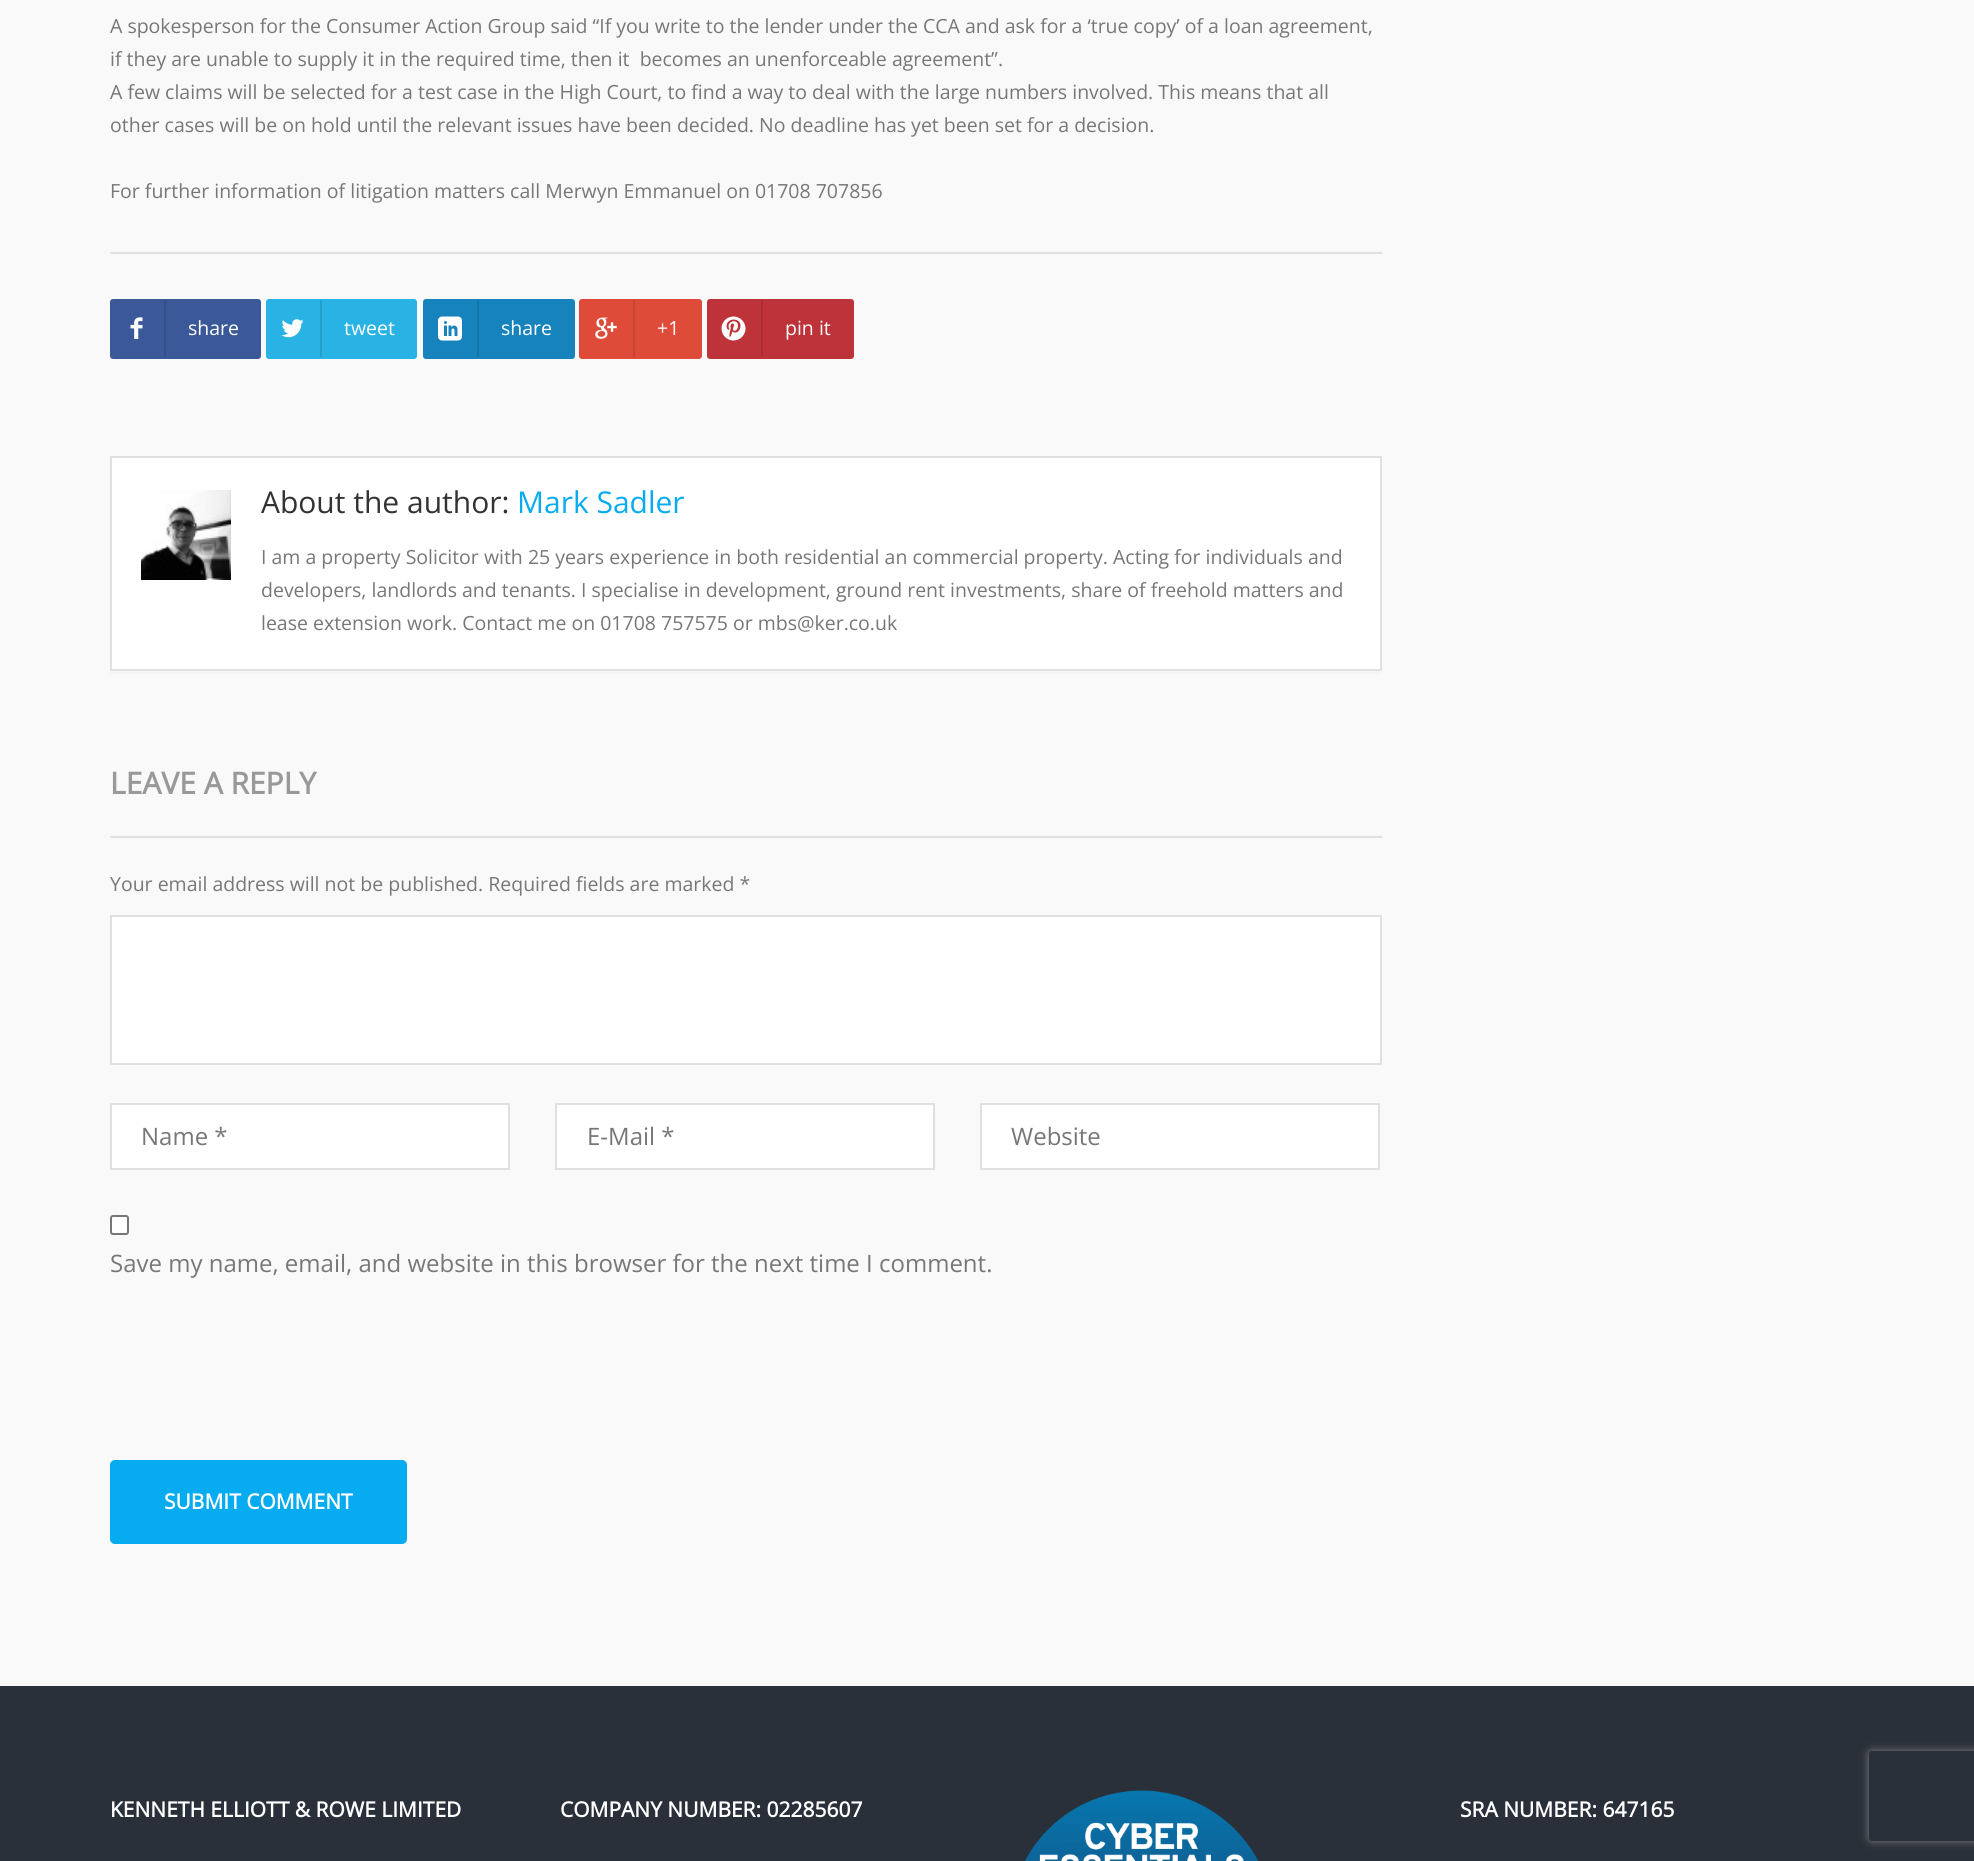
import math
import cairo


def use_color(cr, r, g, b):
  cr.set_source_rgb(r / 255, g / 255, b / 255)

def text(cr, x, y, s, family, size, color, bold=False, italic=False):
  cr.select_font_face(family, cairo.FONT_SLANT_ITALIC if italic else cairo.FONT_SLANT_NORMAL, cairo.FONT_WEIGHT_BOLD if bold else cairo.FONT_WEIGHT_NORMAL)
  cr.set_font_size(size)
  use_color(cr, *color)
  cr.move_to(x, y)
  cr.show_text(s)

def box(cr, x, y, w, h, *color):
  use_color(cr, *color)
  cr.rectangle(x, y, w, h)
  cr.fill()

def round_rect(cr, x, y, w, h, r):
  cr.new_sub_path()
  for i, (u, v) in enumerate([(x + w - r, y + h - r), (x + r, y + h - r), (x + r, y + r), (x + w - r, y + r)]):
    cr.arc(u, v, r, i * math.pi / 2, (i + 1) * math.pi / 2)
  cr.close_path()

def shadow(cr, x, y, w, h, r, blur, alpha):
  cr.push_group_with_content(cairo.CONTENT_ALPHA)
  cr.set_operator(cairo.OPERATOR_SOURCE)
  for i in range(15, -16, -2):
    e = blur * i / 6
    if min(w, h) + 2 * e > 0:
      cr.set_source_rgba(0, 0, 0, alpha * math.erfc((i - 1) / 8.5) / 2)
      round_rect(cr, x - e, y - e, w + 2 * e, h + 2 * e, max(0, min(r + e + blur * .6, min(w, h) / 2 + e)))
      cr.fill()
  cr.mask(cr.pop_group())

def picture(cr, path, x, y, w, h):
  cr.save()
  cr.set_source_surface(cairo.ImageSurface.create_from_png(path), x, y)
  cr.rectangle(x, y, w, h)
  cr.fill()
  cr.restore()

def draw(cr):
  use_color(cr, 249, 249, 249)
  cr.paint()
  box(cr, 110, 252, 1272, 2, 224, 224, 224)
  use_color(cr, 59, 89, 152)
  round_rect(cr, 110, 299, 151, 60, 3)
  cr.fill()
  picture(cr, "img_01.png", 130, 317, 13, 22)
  box(cr, 164, 300, 2, 57, 53, 80, 137)
  use_color(cr, 41, 178, 228)
  round_rect(cr, 266, 299, 151, 60, 3)
  cr.fill()
  picture(cr, "img_02.png", 281, 319, 23, 19)
  box(cr, 320, 300, 2, 57, 37, 160, 205)
  use_color(cr, 23, 131, 188)
  round_rect(cr, 423, 299, 152, 60, 3)
  cr.fill()
  picture(cr, "img_03.png", 438, 316, 24, 25)
  box(cr, 477, 300, 2, 57, 21, 118, 169)
  use_color(cr, 222, 75, 57)
  round_rect(cr, 579, 299, 123, 60, 3)
  cr.fill()
  picture(cr, "img_04.png", 595, 317, 22, 22)
  box(cr, 633, 300, 2, 57, 199, 67, 51)
  use_color(cr, 189, 51, 57)
  round_rect(cr, 707, 299, 147, 60, 3)
  cr.fill()
  picture(cr, "img_05.png", 721, 316, 25, 25)
  box(cr, 761, 300, 2, 57, 170, 46, 51)
  use_color(cr, 245, 245, 245)
  cr.new_path()
  cr.move_to(110, 670)
  cr.line_to(110, 674)
  cr.line_to(1382, 674)
  cr.line_to(1382, 459)
  cr.line_to(1382, 670)
  cr.close_path()
  cr.fill()
  use_color(cr, 255, 255, 255)
  cr.rectangle(111, 457, 1270, 213)
  cr.fill_preserve()
  use_color(cr, 224, 224, 224)
  cr.stroke()
  picture(cr, "img_06.png", 141, 490, 90, 90)
  box(cr, 110, 836, 1272, 2, 224, 224, 224)
  use_color(cr, 255, 255, 255)
  cr.rectangle(111, 916, 1270, 148)
  cr.fill_preserve()
  use_color(cr, 224, 224, 224)
  cr.stroke()
  use_color(cr, 255, 255, 255)
  cr.rectangle(111, 1104, 398, 65)
  cr.fill_preserve()
  use_color(cr, 224, 224, 224)
  cr.stroke()
  use_color(cr, 255, 255, 255)
  cr.rectangle(556, 1104, 378, 65)
  cr.fill_preserve()
  use_color(cr, 224, 224, 224)
  cr.stroke()
  use_color(cr, 255, 255, 255)
  cr.rectangle(981, 1104, 398, 65)
  cr.fill_preserve()
  use_color(cr, 224, 224, 224)
  cr.stroke()
  use_color(cr, 255, 255, 255)
  round_rect(cr, 111, 1216, 17, 18, 2)
  cr.fill_preserve()
  use_color(cr, 118, 118, 118)
  cr.stroke()
  use_color(cr, 7, 171, 239)
  round_rect(cr, 110, 1460, 297, 84, 5)
  cr.fill()
  box(cr, 0, 1686, 1974, 175, 42, 48, 58)
  picture(cr, "img_07.png", 1024, 1790, 235, 71)
  cr.save()
  cr.set_fill_rule(cairo.FILL_RULE_EVEN_ODD)
  cr.new_path()
  cr.move_to(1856, 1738)
  cr.line_to(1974, 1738)
  cr.line_to(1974, 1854)
  cr.line_to(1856, 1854)
  cr.close_path()
  cr.move_to(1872, 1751)
  cr.line_to(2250, 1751)
  cr.curve_to(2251.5, 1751, 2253, 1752.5, 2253, 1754)
  cr.line_to(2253, 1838)
  cr.curve_to(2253, 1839.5, 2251.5, 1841, 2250, 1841)
  cr.line_to(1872, 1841)
  cr.curve_to(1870.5, 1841, 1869, 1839.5, 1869, 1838)
  cr.line_to(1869, 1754)
  cr.curve_to(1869, 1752.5, 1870.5, 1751, 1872, 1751)
  cr.close_path()
  cr.clip()
  use_color(cr, 128, 128, 128)
  shadow(cr, 1869, 1751, 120, 90, 3, 4, 1)
  cr.restore()
  text(cr, 110, 33, "A spokesperson for the Consumer Action Group said “If you write to the lender under the CCA and ask for a ‘true copy’ of a loan agreement,", "Open Sans", 19.5, (119, 119, 119))
  text(cr, 110, 66, "if they are unable to supply it in the required time, then it  becomes an unenforceable agreement”.", "Open Sans", 19.5, (119, 119, 119))
  text(cr, 110, 99, "A few claims will be selected for a test case in the High Court, to find a way to deal with the large numbers involved. This means that all", "Open Sans", 19.5, (119, 119, 119))
  text(cr, 110, 132, "other cases will be on hold until the relevant issues have been decided. No deadline has yet been set for a decision.", "Open Sans", 19.5, (119, 119, 119))
  text(cr, 110, 198, "For further information of litigation matters call Merwyn Emmanuel on 01708 707856", "Open Sans", 19.5, (119, 119, 119))
  text(cr, 188, 335, "share", "Open Sans", 19.5, (255, 255, 255))
  text(cr, 344, 335, "tweet", "Open Sans", 19.5, (255, 255, 255))
  text(cr, 501, 335, "share", "Open Sans", 19.5, (255, 255, 255))
  text(cr, 657, 335, "+1", "Open Sans", 19.5, (255, 255, 255))
  text(cr, 785, 335, "pin it", "Open Sans", 19.5, (255, 255, 255))
  text(cr, 261, 513, "About the author:", "Open Sans", 30, (51, 51, 51))
  text(cr, 517, 513, "Mark Sadler", "Open Sans", 30, (7, 171, 239))
  text(cr, 261, 564, "I am a property Solicitor with 25 years experience in both residential an commercial property. Acting for individuals and", "Open Sans", 19.5, (119, 119, 119))
  text(cr, 261, 597, "developers, landlords and tenants. I specialise in development, ground rent investments, share of freehold matters and", "Open Sans", 19.5, (119, 119, 119))
  text(cr, 261, 630, "lease extension work. Contact me on 01708 757575 or mbs@ker.co.uk", "Open Sans", 19.5, (119, 119, 119))
  text(cr, 110, 794, "LEAVE A REPLY", "Open Sans", 30, (153, 153, 153), bold=True)
  text(cr, 110, 891, "Your email address will not be published. Required fields are marked *", "Open Sans", 19.5, (119, 119, 119))
  text(cr, 141, 1145, "Name *", "Open Sans", 24, (119, 119, 119))
  text(cr, 587, 1145, "E-Mail *", "Open Sans", 24, (119, 119, 119))
  text(cr, 1011, 1145, "Website", "Open Sans", 24, (119, 119, 119))
  text(cr, 110, 1272, "Save my name, email, and website in this browser for the next time I comment.", "Open Sans", 24, (119, 119, 119))
  text(cr, 164, 1509, "SUBMIT COMMENT", "Open Sans", 21, (255, 255, 255), bold=True)
  text(cr, 110, 1817, "KENNETH ELLIOTT & ROWE LIMITED", "Open Sans", 21, (255, 255, 255), bold=True)
  text(cr, 560, 1817, "COMPANY NUMBER: 02285607", "Open Sans", 21, (255, 255, 255), bold=True)
  text(cr, 1460, 1817, "SRA NUMBER: 647165", "Open Sans", 21, (255, 255, 255), bold=True)


surface = cairo.ImageSurface(cairo.FORMAT_RGB24, 1974, 1861)
cr = cairo.Context(surface)
options = cairo.FontOptions()
options.set_hint_metrics(cairo.HINT_METRICS_OFF)
options.set_hint_style(cairo.HINT_STYLE_NONE)
cr.set_font_options(options)
cr.set_miter_limit(4)
draw(cr)
surface.write_to_png("out.png")
